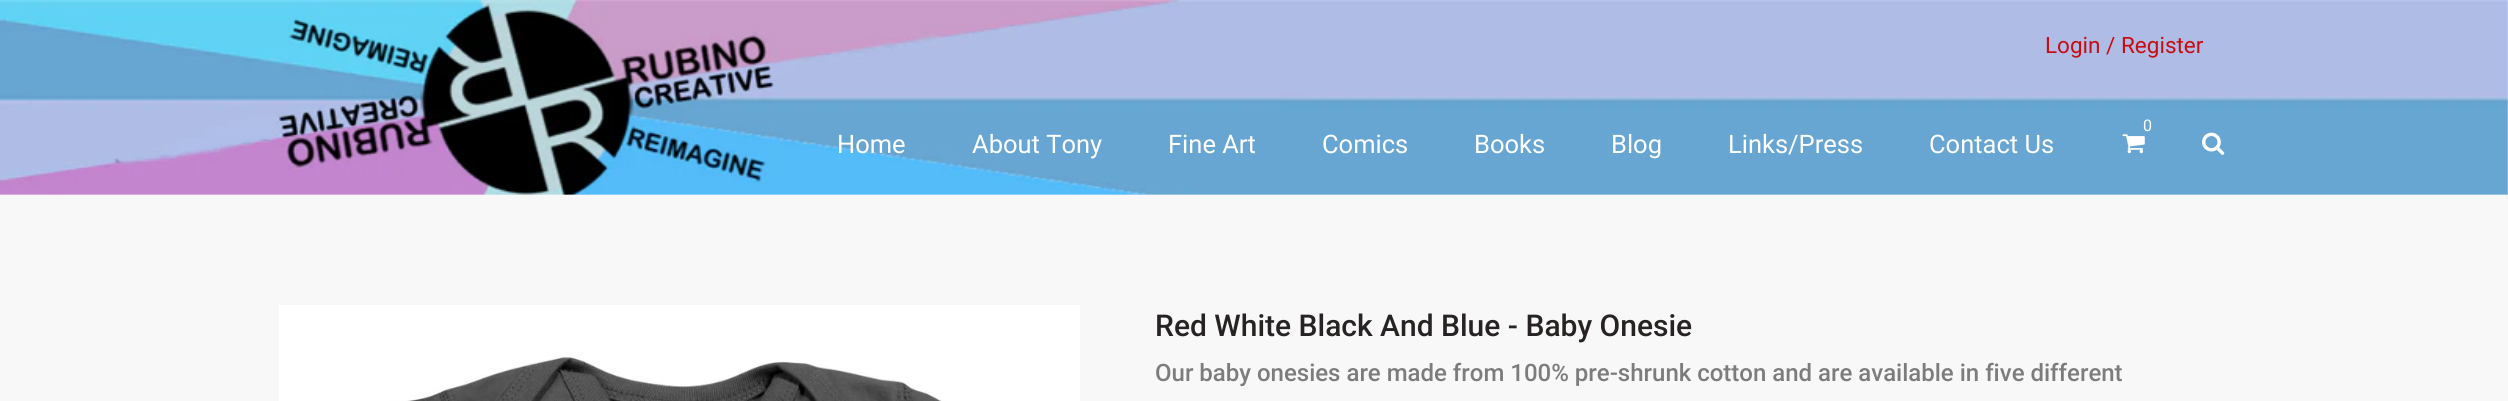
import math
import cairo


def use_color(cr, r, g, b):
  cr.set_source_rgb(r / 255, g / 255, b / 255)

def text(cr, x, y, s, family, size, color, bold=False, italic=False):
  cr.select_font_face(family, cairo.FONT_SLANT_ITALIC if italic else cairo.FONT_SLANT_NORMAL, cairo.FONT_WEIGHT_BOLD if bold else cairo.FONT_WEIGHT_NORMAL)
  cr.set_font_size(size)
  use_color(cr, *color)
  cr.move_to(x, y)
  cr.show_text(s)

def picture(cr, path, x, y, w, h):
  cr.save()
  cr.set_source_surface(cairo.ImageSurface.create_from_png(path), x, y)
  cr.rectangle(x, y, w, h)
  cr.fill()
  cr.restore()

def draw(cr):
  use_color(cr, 248, 248, 248)
  cr.paint()
  picture(cr, "img_01.png", 0, 0, 2508, 195)
  picture(cr, "img_02.png", 2122, 134, 23, 20)
  picture(cr, "img_03.png", 2202, 132, 23, 23)
  picture(cr, "img_04.png", 279, 305, 801, 96)
  text(cr, 2045, 53, "Login /", "Roboto", 22.5, (201, 12, 16))
  text(cr, 2121, 53, "Register", "Roboto", 22.5, (201, 12, 16))
  text(cr, 2143, 131, "0", "Roboto", 16, (255, 255, 255))
  text(cr, 837, 153, "Home", "Roboto", 25.5, (255, 255, 255))
  text(cr, 972, 153, "About Tony", "Roboto", 25.5, (255, 255, 255))
  text(cr, 1168, 153, "Fine Art", "Roboto", 25.5, (255, 255, 255))
  text(cr, 1322, 153, "Comics", "Roboto", 25.5, (255, 255, 255))
  text(cr, 1474, 153, "Books", "Roboto", 25.5, (255, 255, 255))
  text(cr, 1611, 153, "Blog", "Roboto", 25.5, (255, 255, 255))
  text(cr, 1728, 153, "Links/Press", "Roboto", 25.5, (255, 255, 255))
  text(cr, 1929, 153, "Contact Us", "Roboto", 25.5, (255, 255, 255))
  text(cr, 1155, 336, "Red White Black And Blue - Baby Onesie", "Roboto Medium", 30, (40, 35, 35))
  text(cr, 1155, 381, "Our baby onesies are made from 100% pre-shrunk cotton and are available in five different", "Roboto Medium", 24, (124, 124, 124))


surface = cairo.ImageSurface(cairo.FORMAT_RGB24, 2508, 401)
cr = cairo.Context(surface)
options = cairo.FontOptions()
options.set_hint_metrics(cairo.HINT_METRICS_OFF)
options.set_hint_style(cairo.HINT_STYLE_NONE)
cr.set_font_options(options)
cr.set_miter_limit(4)
draw(cr)
surface.write_to_png("out.png")
